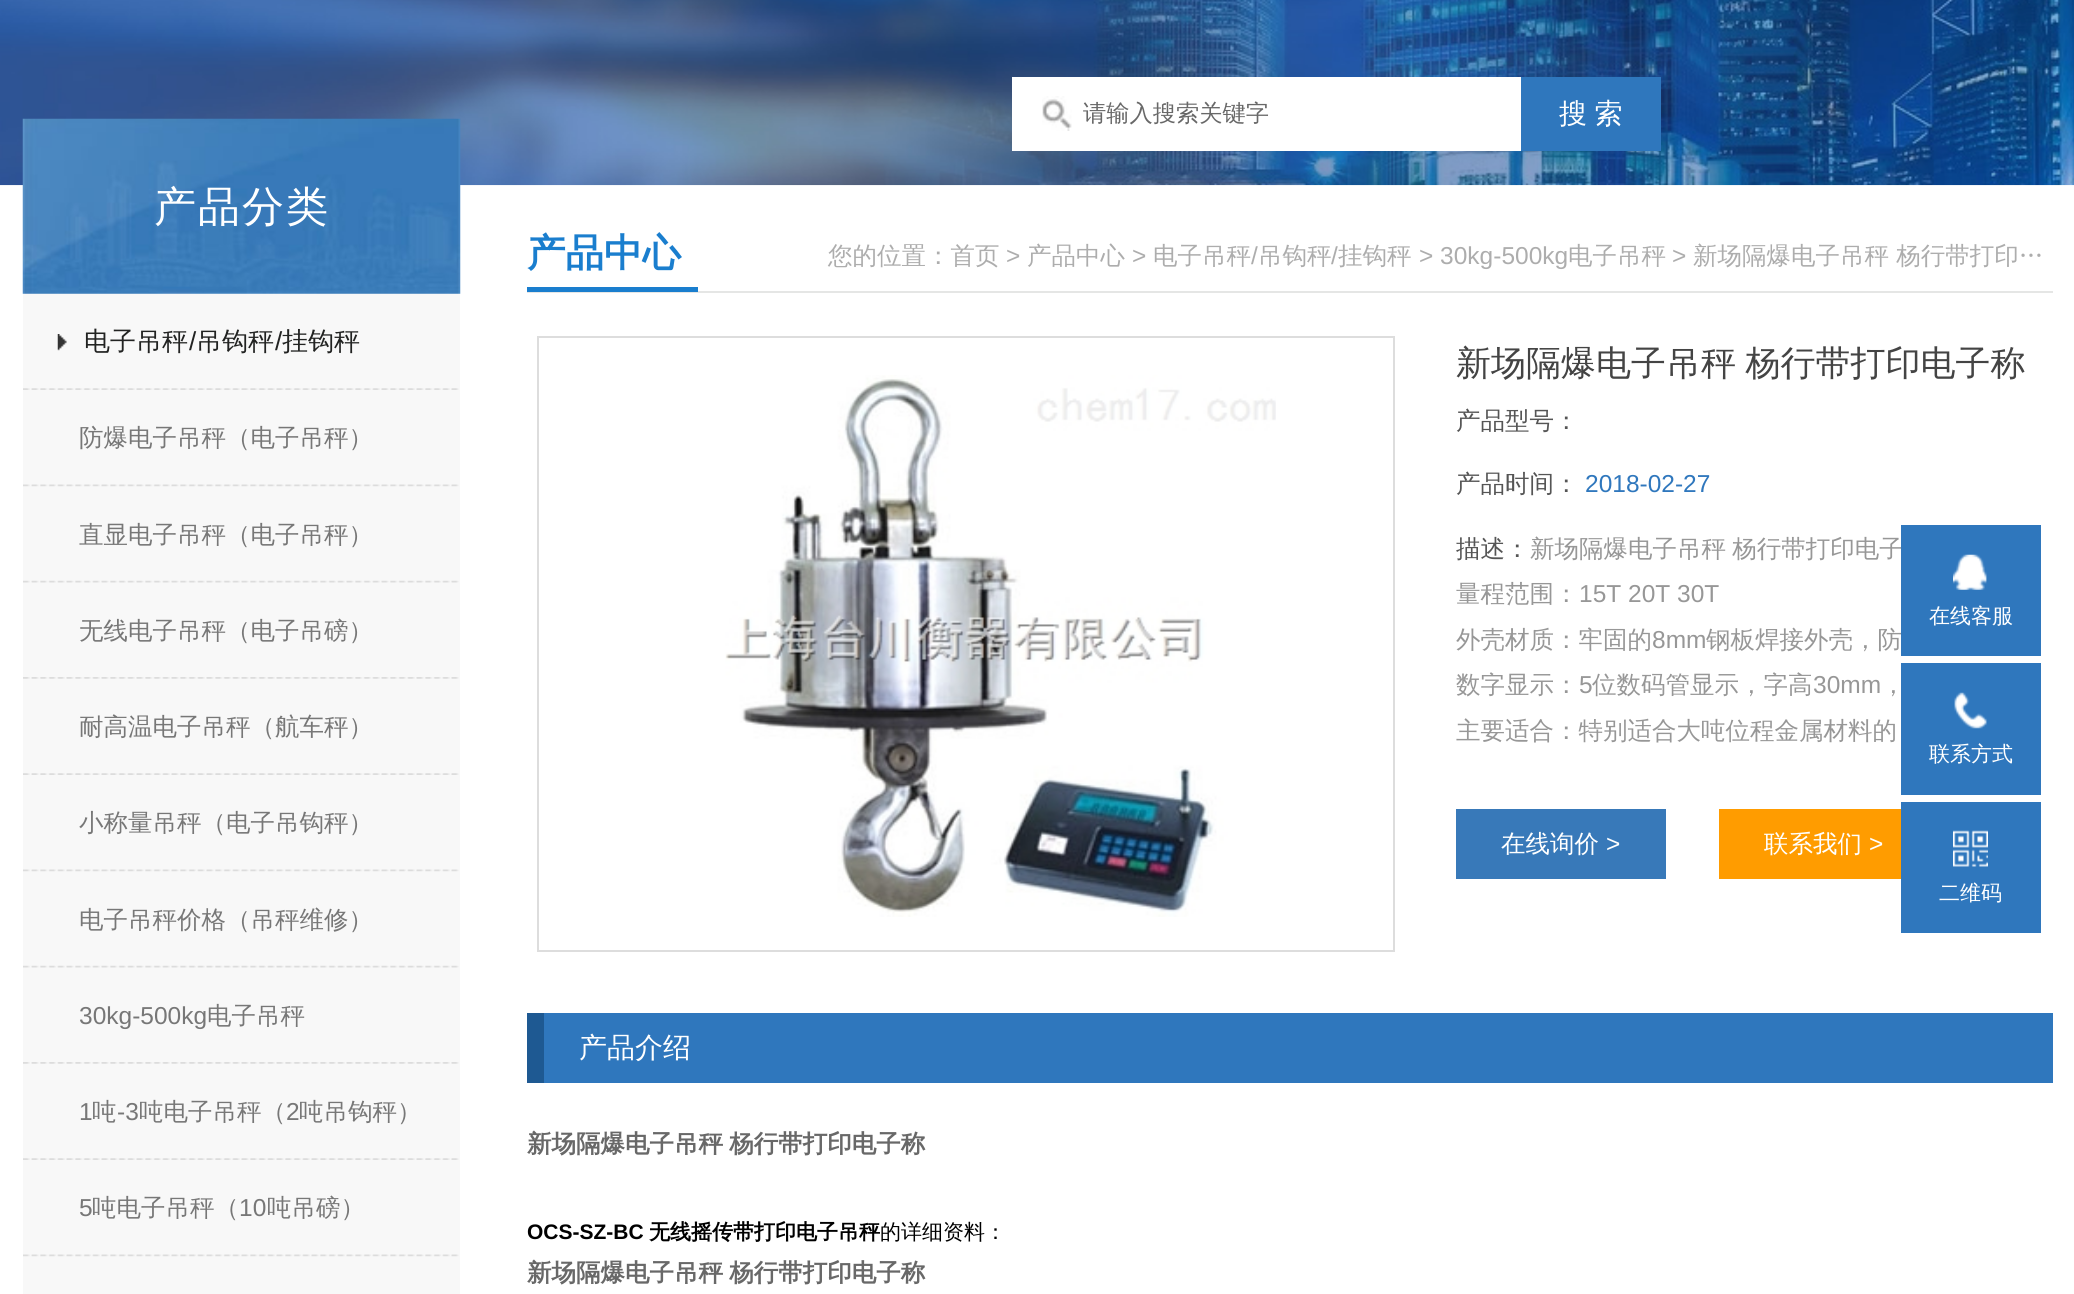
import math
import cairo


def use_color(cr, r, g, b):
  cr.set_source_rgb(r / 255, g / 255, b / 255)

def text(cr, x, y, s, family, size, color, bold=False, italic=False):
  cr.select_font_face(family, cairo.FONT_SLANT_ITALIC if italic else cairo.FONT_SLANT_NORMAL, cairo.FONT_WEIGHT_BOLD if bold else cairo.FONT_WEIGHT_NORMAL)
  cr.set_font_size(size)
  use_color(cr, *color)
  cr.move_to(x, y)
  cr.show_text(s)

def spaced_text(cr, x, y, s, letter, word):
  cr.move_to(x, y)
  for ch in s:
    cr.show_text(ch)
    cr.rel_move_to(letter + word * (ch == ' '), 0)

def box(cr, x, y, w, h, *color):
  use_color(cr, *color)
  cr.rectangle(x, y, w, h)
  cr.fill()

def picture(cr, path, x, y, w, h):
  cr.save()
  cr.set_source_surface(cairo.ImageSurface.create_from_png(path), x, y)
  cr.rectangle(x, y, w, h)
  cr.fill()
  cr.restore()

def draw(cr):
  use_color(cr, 255, 255, 255)
  cr.paint()
  picture(cr, "img_01.png", 0, 0, 2074, 186)
  box(cr, 1012, 77, 509, 74, 255, 255, 255)
  picture(cr, "img_02.png", 1042, 96, 30, 35)
  box(cr, 1521, 77, 140, 74, 47, 119, 189)
  box(cr, 23, 293, 437, 1001, 248, 248, 248)
  picture(cr, "img_03.png", 22, 118, 439, 176)
  picture(cr, "img_04.png", 23, 388, 436, 2)
  picture(cr, "img_05.png", 57, 334, 10, 17)
  picture(cr, "img_06.png", 23, 484, 436, 3)
  picture(cr, "img_07.png", 23, 580, 436, 3)
  picture(cr, "img_08.png", 23, 677, 436, 2)
  picture(cr, "img_04.png", 23, 773, 436, 2)
  picture(cr, "img_06.png", 23, 869, 436, 3)
  picture(cr, "img_07.png", 23, 965, 436, 3)
  picture(cr, "img_08.png", 23, 1062, 436, 2)
  picture(cr, "img_04.png", 23, 1158, 436, 2)
  picture(cr, "img_06.png", 23, 1254, 436, 3)
  box(cr, 527, 291, 1526, 2, 229, 230, 229)
  box(cr, 527, 287, 171, 5, 26, 126, 206)
  cr.rectangle(538, 337, 856, 614)
  use_color(cr, 221, 221, 221)
  cr.stroke()
  picture(cr, "img_09.png", 725, 375, 551, 542)
  box(cr, 1456, 809, 210, 70, 56, 121, 185)
  box(cr, 1719, 809, 182, 70, 255, 156, 0)
  box(cr, 544, 1013, 1509, 70, 47, 119, 189)
  box(cr, 527, 1013, 17, 70, 30, 89, 146)
  box(cr, 1901, 663, 140, 132, 47, 119, 189)
  picture(cr, "img_11.png", 1954, 692, 33, 37)
  box(cr, 1901, 802, 140, 131, 47, 119, 189)
  picture(cr, "img_12.png", 1953, 830, 35, 37)
  text(cr, 1083, 121, "请输入搜索关键字", "WenQuanYi Zen Hei Medium", 23.25, (104, 104, 104))
  cr.set_font_size(28)
  use_color(cr, 255, 255, 255)
  spaced_text(cr, 1559, 123, "搜 索", 0, -1)
  cr.set_font_size(42)
  spaced_text(cr, 154, 221, "产品分类", 2, 0)
  text(cr, 84, 350, "电子吊秤", "WenQuanYi Zen Hei Medium", 26, (34, 35, 34))
  text(cr, 189, 350, "/", "Liberation Sans", 26, (34, 35, 34))
  text(cr, 196, 350, "吊钩秤", "WenQuanYi Zen Hei Medium", 26, (34, 35, 34))
  text(cr, 275, 350, "/", "Liberation Sans", 26, (34, 35, 34))
  text(cr, 282, 350, "挂钩秤", "WenQuanYi Zen Hei Medium", 26, (34, 35, 34))
  text(cr, 79, 446, "防爆电子吊秤（电子吊秤）", "WenQuanYi Zen Hei Medium", 24.5, (119, 119, 119))
  text(cr, 79, 543, "直显电子吊秤（电子吊秤）", "WenQuanYi Zen Hei Medium", 24.5, (119, 119, 119))
  text(cr, 79, 639, "无线电子吊秤（电子吊磅）", "WenQuanYi Zen Hei Medium", 24.5, (119, 119, 119))
  text(cr, 79, 735, "耐高温电子吊秤（航车秤）", "WenQuanYi Zen Hei Medium", 24.5, (119, 119, 119))
  text(cr, 79, 831, "小称量吊秤（电子吊钩秤）", "WenQuanYi Zen Hei Medium", 24.5, (119, 119, 119))
  text(cr, 79, 928, "电子吊秤价格（吊秤维修）", "WenQuanYi Zen Hei Medium", 24.5, (119, 119, 119))
  text(cr, 79, 1024, "30kg-500kg", "Liberation Sans", 24.5, (119, 119, 119))
  text(cr, 207, 1024, "电子吊秤", "WenQuanYi Zen Hei Medium", 24.5, (119, 119, 119))
  text(cr, 79, 1120, "1", "Liberation Sans", 24.5, (119, 119, 119))
  text(cr, 92, 1120, "吨", "WenQuanYi Zen Hei Medium", 24.5, (119, 119, 119))
  text(cr, 117, 1120, "-3", "Liberation Sans", 24.5, (119, 119, 119))
  text(cr, 139, 1120, "吨电子吊秤（", "WenQuanYi Zen Hei Medium", 24.5, (119, 119, 119))
  text(cr, 286, 1120, "2", "Liberation Sans", 24.5, (119, 119, 119))
  text(cr, 299, 1120, "吨吊钩秤）", "WenQuanYi Zen Hei Medium", 24.5, (119, 119, 119))
  text(cr, 79, 1216, "5", "Liberation Sans", 24.5, (119, 119, 119))
  text(cr, 92, 1216, "吨电子吊秤（", "WenQuanYi Zen Hei Medium", 24.5, (119, 119, 119))
  text(cr, 239, 1216, "10", "Liberation Sans", 24.5, (119, 119, 119))
  text(cr, 267, 1216, "吨吊磅）", "WenQuanYi Zen Hei Medium", 24.5, (119, 119, 119))
  text(cr, 527, 266, "产品中心", "WenQuanYi Zen Hei", 38.5, (26, 126, 206), bold=True)
  text(cr, 828, 264, "您的位置：首页", "WenQuanYi Zen Hei Medium", 24.5, (173, 173, 173))
  text(cr, 1006, 264, ">", "Liberation Sans", 24.5, (173, 173, 173))
  text(cr, 1027, 264, "产品中心", "WenQuanYi Zen Hei Medium", 24.5, (173, 173, 173))
  text(cr, 1132, 264, ">", "Liberation Sans", 24.5, (173, 173, 173))
  text(cr, 1153, 264, "电子吊秤", "WenQuanYi Zen Hei Medium", 24.5, (173, 173, 173))
  text(cr, 1251, 264, "/", "Liberation Sans", 24.5, (173, 173, 173))
  text(cr, 1258, 264, "吊钩秤", "WenQuanYi Zen Hei Medium", 24.5, (173, 173, 173))
  text(cr, 1331, 264, "/", "Liberation Sans", 24.5, (173, 173, 173))
  text(cr, 1338, 264, "挂钩秤", "WenQuanYi Zen Hei Medium", 24.5, (173, 173, 173))
  text(cr, 1419, 264, "> 30kg-500kg", "Liberation Sans", 24.5, (173, 173, 173))
  text(cr, 1568, 264, "电子吊秤", "WenQuanYi Zen Hei Medium", 24.5, (173, 173, 173))
  text(cr, 1672, 264, ">", "Liberation Sans", 24.5, (173, 173, 173))
  text(cr, 1693, 264, "新场隔爆电子吊秤 杨行带打印…", "WenQuanYi Zen Hei Medium", 24.5, (173, 173, 173))
  cr.set_font_size(35)
  use_color(cr, 68, 68, 68)
  spaced_text(cr, 1456, 375, "新场隔爆电子吊秤 杨行带打印电子称", 0, -1)
  text(cr, 1456, 429, "产品型号：", "WenQuanYi Zen Hei Medium", 24.5, (85, 85, 85))
  text(cr, 1456, 492, "产品时间：", "WenQuanYi Zen Hei Medium", 24.5, (85, 85, 85))
  text(cr, 1585, 492, "2018-02-27", "Liberation Sans", 24.5, (47, 119, 189))
  text(cr, 1456, 557, "描述：", "WenQuanYi Zen Hei Medium", 24.5, (85, 85, 85))
  use_color(cr, 151, 151, 151)
  spaced_text(cr, 1530, 557, "新场隔爆电子吊秤 杨行带打印电子", 0, -1)
  text(cr, 1456, 602, "量程范围：", "WenQuanYi Zen Hei Medium", 24.5, (151, 151, 151))
  text(cr, 1579, 602, "15T 20T 30T", "Liberation Sans", 24.5, (151, 151, 151))
  text(cr, 1456, 648, "外壳材质：牢固的", "WenQuanYi Zen Hei Medium", 24.5, (151, 151, 151))
  text(cr, 1652, 648, "8mm", "Liberation Sans", 24.5, (151, 151, 151))
  text(cr, 1706, 648, "钢板焊接外壳，防", "WenQuanYi Zen Hei Medium", 24.5, (151, 151, 151))
  text(cr, 1456, 693, "数字显示：", "WenQuanYi Zen Hei Medium", 24.5, (151, 151, 151))
  text(cr, 1579, 693, "5", "Liberation Sans", 24.5, (151, 151, 151))
  text(cr, 1592, 693, "位数码管显示，字高", "WenQuanYi Zen Hei Medium", 24.5, (151, 151, 151))
  text(cr, 1813, 693, "30mm", "Liberation Sans", 24.5, (151, 151, 151))
  text(cr, 1881, 693, "，", "WenQuanYi Zen Hei Medium", 24.5, (151, 151, 151))
  text(cr, 1456, 739, "主要适合：特别适合大吨位程金属材料的", "WenQuanYi Zen Hei Medium", 24.5, (151, 151, 151))
  text(cr, 1501, 852, "在线询价", "WenQuanYi Zen Hei Medium", 24.5, (255, 255, 255))
  text(cr, 1606, 852, ">", "Liberation Sans", 24.5, (255, 255, 255))
  text(cr, 1764, 852, "联系我们", "WenQuanYi Zen Hei Medium", 24.5, (255, 255, 255))
  text(cr, 1869, 852, ">", "Liberation Sans", 24.5, (255, 255, 255))
  text(cr, 579, 1057, "产品介绍", "WenQuanYi Zen Hei Medium", 28, (255, 255, 255))
  cr.select_font_face("WenQuanYi Zen Hei", cairo.FONT_SLANT_NORMAL, cairo.FONT_WEIGHT_BOLD)
  cr.set_font_size(24.5)
  use_color(cr, 104, 104, 104)
  spaced_text(cr, 527, 1152, "新场隔爆电子吊秤 杨行带打印电子称", 0, -1)
  text(cr, 527, 1239, "OCS-SZ-BC", "Liberation Sans", 21, (0, 0, 0), bold=True)
  text(cr, 649, 1239, "无线摇传带打印电子吊秤", "WenQuanYi Zen Hei", 21, (0, 0, 0), bold=True)
  text(cr, 880, 1239, "的详细资料：", "WenQuanYi Zen Hei Medium", 21, (0, 0, 0))
  cr.select_font_face("WenQuanYi Zen Hei", cairo.FONT_SLANT_NORMAL, cairo.FONT_WEIGHT_BOLD)
  cr.set_font_size(24.5)
  use_color(cr, 104, 104, 104)
  spaced_text(cr, 527, 1281, "新场隔爆电子吊秤 杨行带打印电子称", 0, -1)
  box(cr, 1901, 525, 140, 131, 47, 119, 189)
  picture(cr, "img_10.png", 1953, 554, 34, 36)
  text(cr, 1929, 623, "在线客服", "WenQuanYi Zen Hei Medium", 21, (255, 255, 255))
  text(cr, 1929, 761, "联系方式", "WenQuanYi Zen Hei Medium", 21, (255, 255, 255))
  text(cr, 1939, 900, "二维码", "WenQuanYi Zen Hei Medium", 21, (255, 255, 255))


surface = cairo.ImageSurface(cairo.FORMAT_RGB24, 2074, 1294)
cr = cairo.Context(surface)
options = cairo.FontOptions()
options.set_hint_metrics(cairo.HINT_METRICS_OFF)
options.set_hint_style(cairo.HINT_STYLE_NONE)
cr.set_font_options(options)
cr.set_miter_limit(4)
draw(cr)
surface.write_to_png("out.png")
